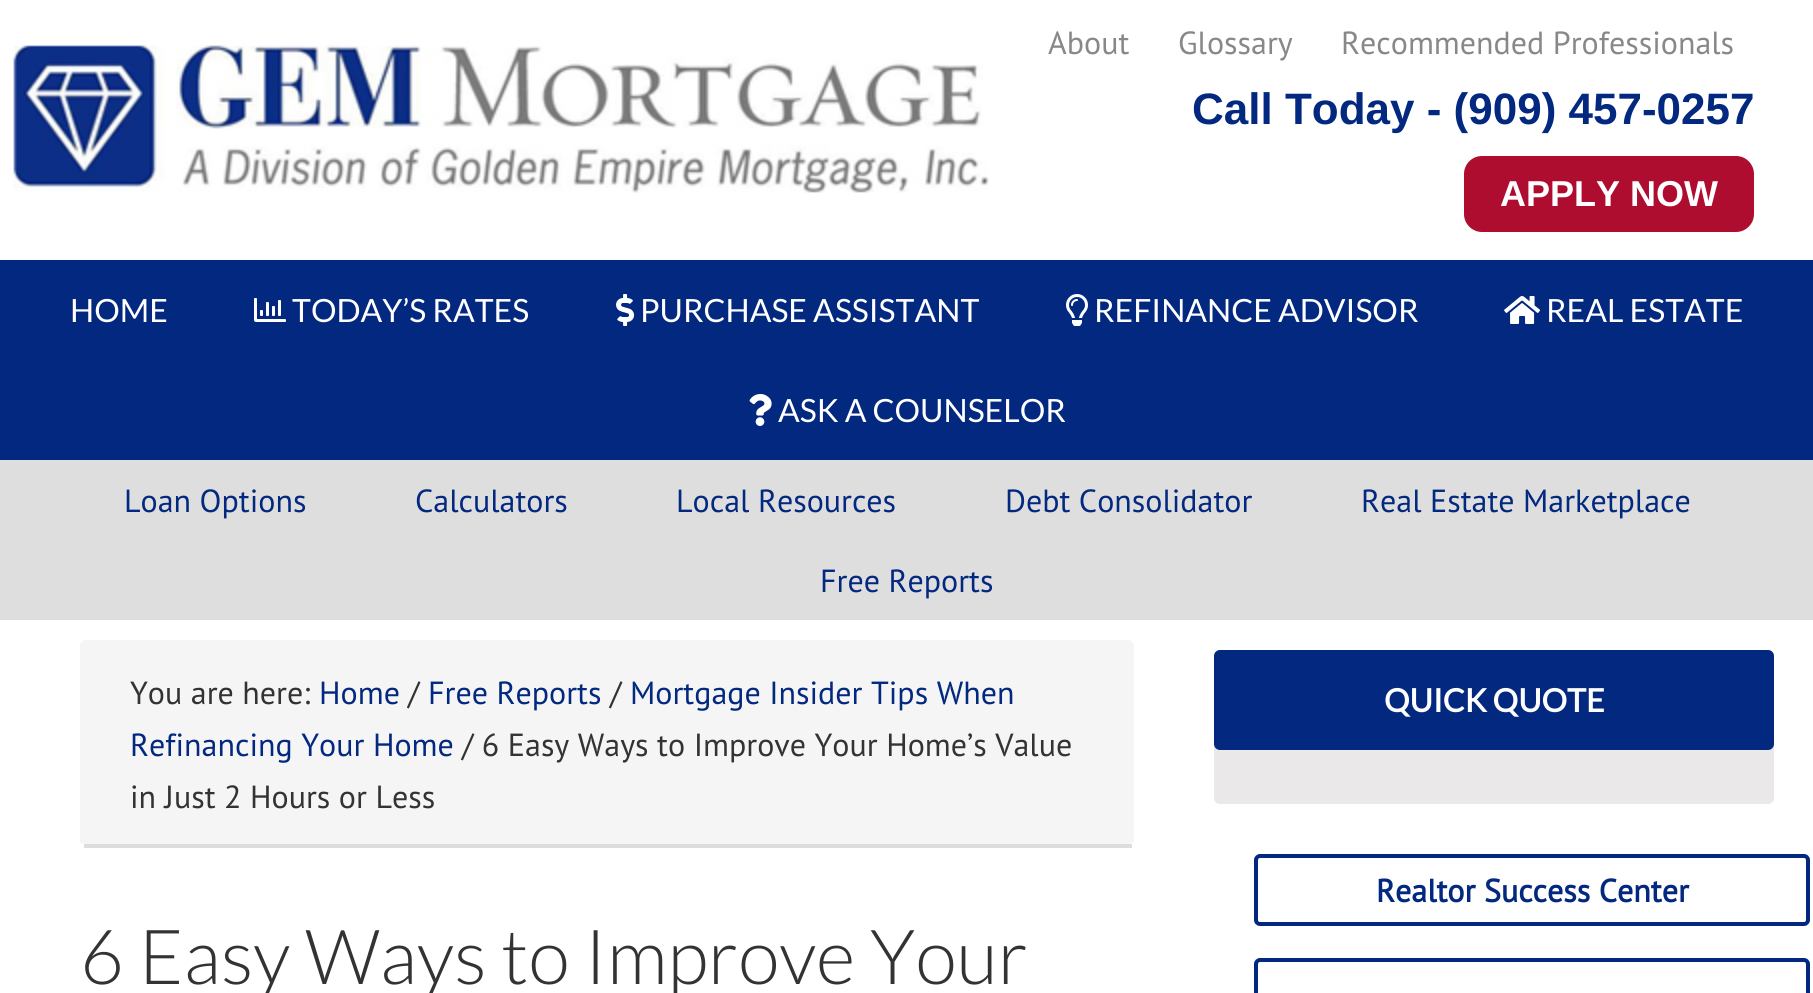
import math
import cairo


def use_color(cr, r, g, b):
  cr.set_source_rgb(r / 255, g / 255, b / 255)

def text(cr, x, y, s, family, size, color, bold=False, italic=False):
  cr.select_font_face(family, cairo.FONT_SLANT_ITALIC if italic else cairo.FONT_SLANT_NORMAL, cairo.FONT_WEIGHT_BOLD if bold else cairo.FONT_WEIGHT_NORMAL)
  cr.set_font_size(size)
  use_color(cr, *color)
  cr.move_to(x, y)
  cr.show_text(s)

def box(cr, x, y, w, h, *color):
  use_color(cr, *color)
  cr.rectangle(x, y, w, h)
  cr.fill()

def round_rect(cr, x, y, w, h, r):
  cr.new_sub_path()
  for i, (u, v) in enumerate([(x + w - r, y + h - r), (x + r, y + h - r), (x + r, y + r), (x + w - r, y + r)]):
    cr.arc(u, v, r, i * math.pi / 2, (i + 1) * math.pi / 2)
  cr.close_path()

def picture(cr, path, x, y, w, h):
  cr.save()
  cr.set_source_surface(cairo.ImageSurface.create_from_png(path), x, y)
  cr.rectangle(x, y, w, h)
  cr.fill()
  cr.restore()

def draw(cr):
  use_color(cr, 255, 255, 255)
  cr.paint()
  picture(cr, "img_01.png", 13, 45, 976, 148)
  use_color(cr, 174, 13, 48)
  round_rect(cr, 1466, 158, 286, 72, 16)
  cr.fill_preserve()
  cr.set_line_width(4)
  cr.stroke()
  box(cr, 0, 260, 1813, 200, 3, 40, 128)
  picture(cr, "img_02.png", 254, 298, 32, 24)
  picture(cr, "img_03.png", 616, 294, 19, 32)
  picture(cr, "img_04.png", 1066, 294, 22, 32)
  picture(cr, "img_05.png", 1504, 296, 36, 28)
  picture(cr, "img_06.png", 749, 394, 23, 32)
  box(cr, 0, 460, 1813, 160, 222, 222, 222)
  use_color(cr, 245, 245, 245)
  cr.new_path()
  cr.move_to(86, 640)
  cr.line_to(1128, 640)
  cr.curve_to(1131, 640, 1134, 643, 1134, 646)
  cr.line_to(1134, 842)
  cr.curve_to(1134, 843, 1131, 844, 1128, 844)
  cr.line_to(86, 844)
  cr.curve_to(83, 844, 80, 843, 80, 842)
  cr.line_to(80, 646)
  cr.curve_to(80, 643, 83, 640, 86, 640)
  cr.close_path()
  cr.fill()
  box(cr, 84, 844, 1048, 4, 221, 221, 221)
  use_color(cr, 234, 232, 232)
  round_rect(cr, 1214, 650, 560, 154, 6)
  cr.fill()
  use_color(cr, 3, 40, 128)
  round_rect(cr, 1214, 650, 560, 100, 6)
  cr.fill()
  round_rect(cr, 1256, 856, 552, 68, 4)
  cr.stroke()
  round_rect(cr, 1256, 960, 552, 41, 4)
  cr.stroke()
  text(cr, 1048, 54, "About", "PT Sans", 32, (136, 136, 136))
  text(cr, 1178, 54, "Glossary", "PT Sans", 32, (136, 136, 136))
  text(cr, 1341, 54, "Recommended Professionals", "PT Sans", 32, (136, 136, 136))
  text(cr, 1192, 124, "Call Today - (909) 457-0257", "Liberation Sans", 44, (3, 40, 128), bold=True)
  text(cr, 1500, 206, "APPLY NOW", "Liberation Sans", 36, (255, 255, 255), bold=True)
  text(cr, 70, 322, "HOME", "Lato", 32, (255, 255, 255))
  text(cr, 292, 322, "TODAY’S RATES", "Lato", 32, (255, 255, 255))
  text(cr, 640, 322, "PURCHASE ASSISTANT", "Lato", 32, (255, 255, 255))
  text(cr, 1094, 322, "REFINANCE ADVISOR", "Lato", 32, (255, 255, 255))
  text(cr, 1546, 322, "REAL ESTATE", "Lato", 32, (255, 255, 255))
  text(cr, 778, 422, "ASK A COUNSELOR", "Lato", 32, (255, 255, 255))
  text(cr, 124, 512, "Loan Options", "PT Sans", 32, (3, 40, 128))
  text(cr, 415, 512, "Calculators", "PT Sans", 32, (3, 40, 128))
  text(cr, 676, 512, "Local Resources", "PT Sans", 32, (3, 40, 128))
  text(cr, 1005, 512, "Debt Consolidator", "PT Sans", 32, (3, 40, 128))
  text(cr, 1361, 512, "Real Estate Marketplace", "PT Sans", 32, (3, 40, 128))
  text(cr, 820, 592, "Free Reports", "PT Sans", 32, (3, 40, 128))
  text(cr, 130, 704, "You are here:", "PT Sans", 32, (51, 51, 51))
  text(cr, 319, 704, "Home", "PT Sans", 32, (3, 40, 128))
  text(cr, 408, 704, "/", "PT Sans", 32, (51, 51, 51))
  text(cr, 428, 704, "Free Reports", "PT Sans", 32, (3, 40, 128))
  text(cr, 610, 704, "/", "PT Sans", 32, (51, 51, 51))
  text(cr, 630, 704, "Mortgage Insider Tips When", "PT Sans", 32, (3, 40, 128))
  text(cr, 130, 756, "Refinancing Your Home", "PT Sans", 32, (3, 40, 128))
  text(cr, 462, 756, "/ 6 Easy Ways to Improve Your Home’s Value", "PT Sans", 32, (51, 51, 51))
  text(cr, 130, 808, "in Just 2 Hours or Less", "PT Sans", 32, (51, 51, 51))
  text(cr, 80, 984, "6 Easy Ways to Improve Your", "Lato Light", 76, (51, 51, 51))
  text(cr, 1384, 712, "QUICK QUOTE", "Lato", 32, (255, 255, 255), bold=True)
  text(cr, 1376, 902, "Realtor Success Center", "PT Sans", 32, (3, 40, 128), bold=True)


surface = cairo.ImageSurface(cairo.FORMAT_RGB24, 1813, 993)
cr = cairo.Context(surface)
options = cairo.FontOptions()
options.set_hint_metrics(cairo.HINT_METRICS_OFF)
options.set_hint_style(cairo.HINT_STYLE_NONE)
cr.set_font_options(options)
cr.set_miter_limit(4)
draw(cr)
surface.write_to_png("out.png")
